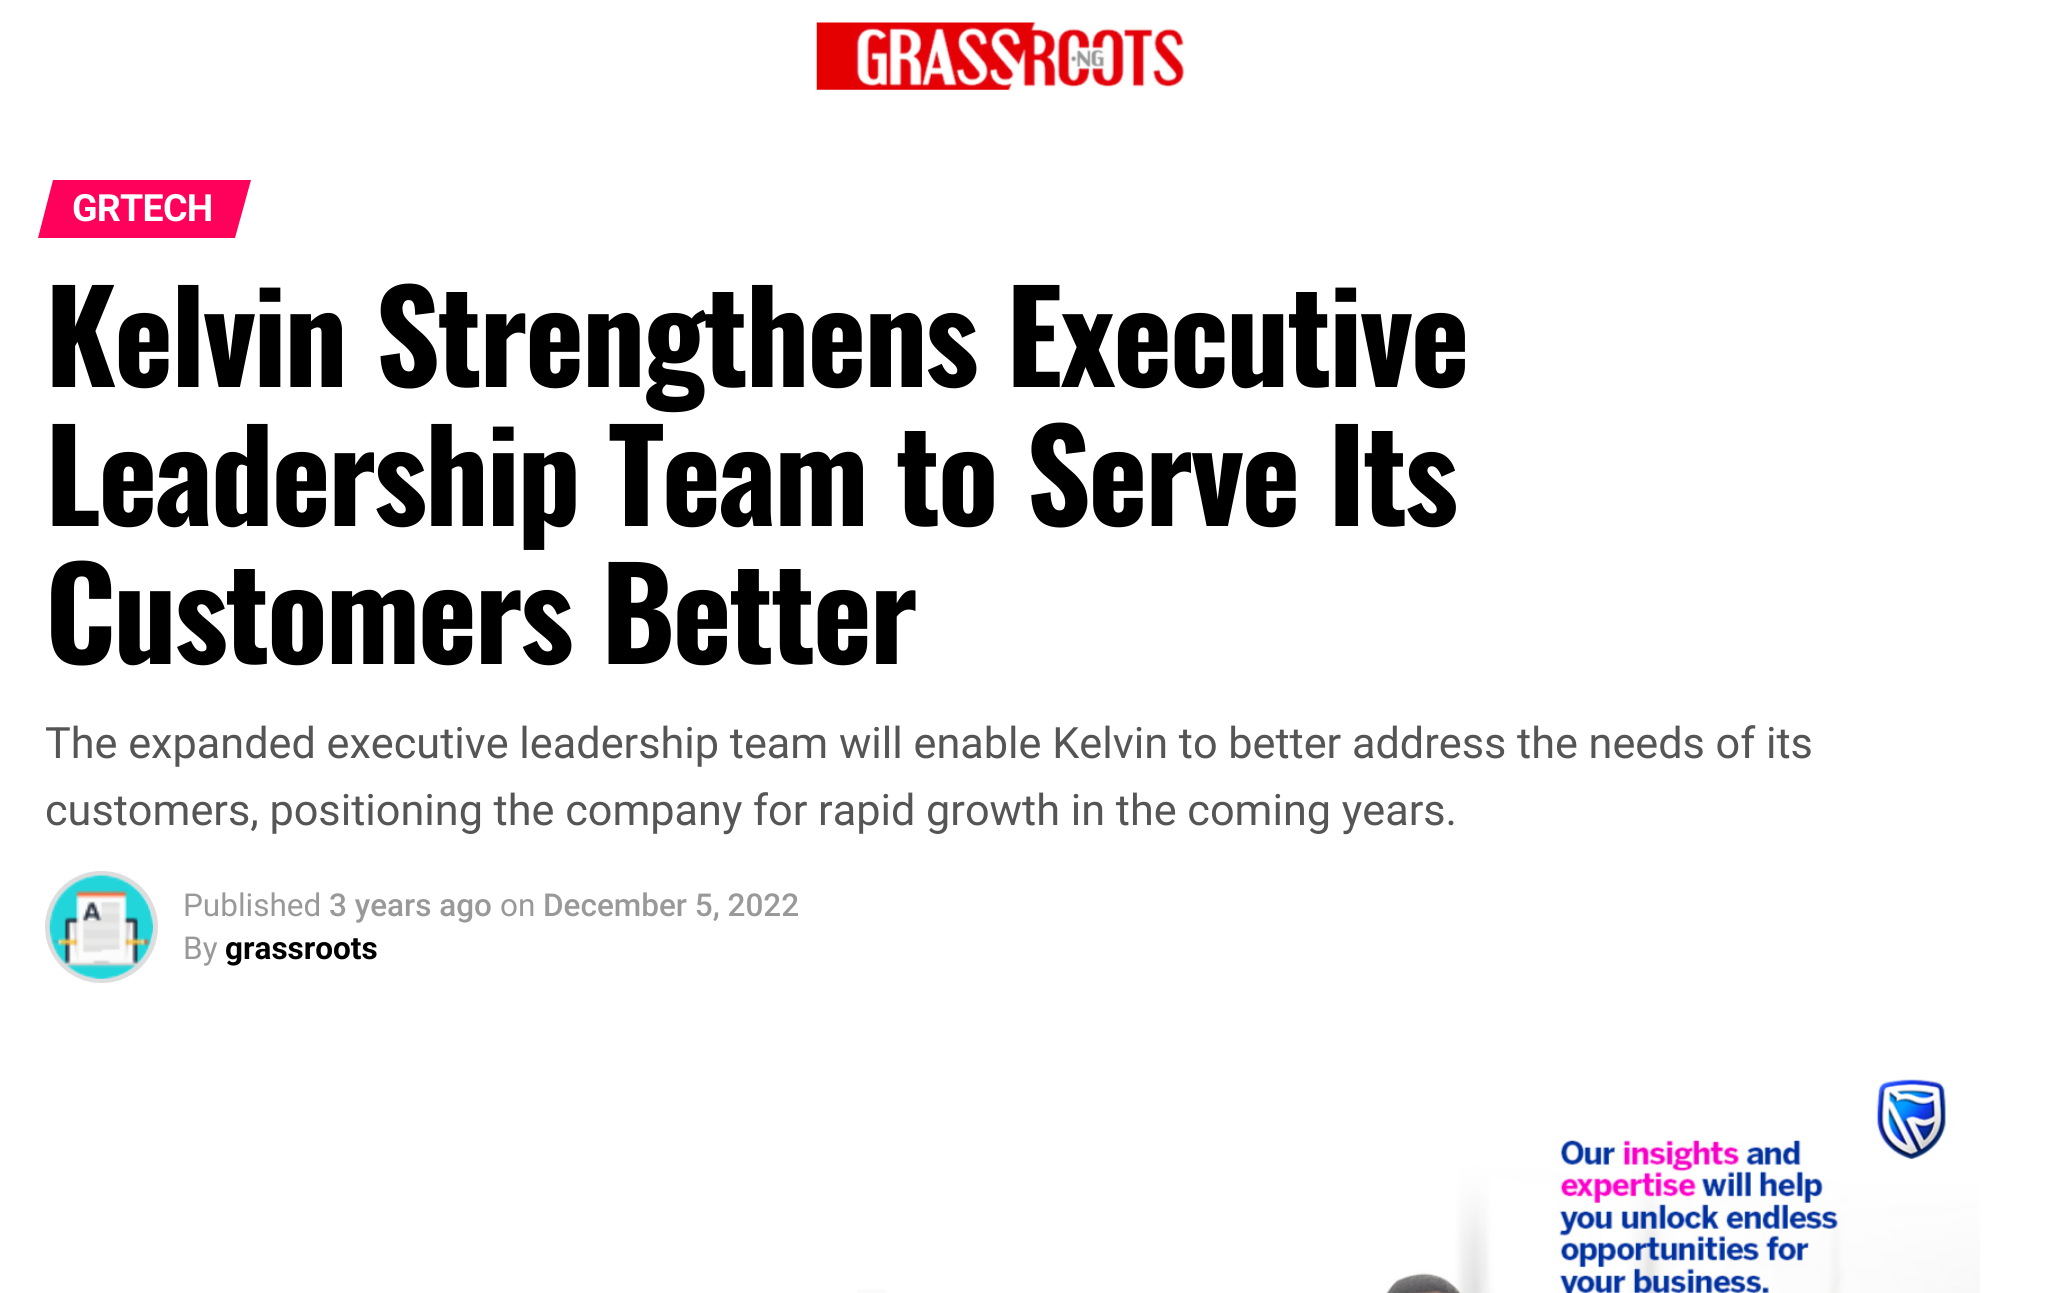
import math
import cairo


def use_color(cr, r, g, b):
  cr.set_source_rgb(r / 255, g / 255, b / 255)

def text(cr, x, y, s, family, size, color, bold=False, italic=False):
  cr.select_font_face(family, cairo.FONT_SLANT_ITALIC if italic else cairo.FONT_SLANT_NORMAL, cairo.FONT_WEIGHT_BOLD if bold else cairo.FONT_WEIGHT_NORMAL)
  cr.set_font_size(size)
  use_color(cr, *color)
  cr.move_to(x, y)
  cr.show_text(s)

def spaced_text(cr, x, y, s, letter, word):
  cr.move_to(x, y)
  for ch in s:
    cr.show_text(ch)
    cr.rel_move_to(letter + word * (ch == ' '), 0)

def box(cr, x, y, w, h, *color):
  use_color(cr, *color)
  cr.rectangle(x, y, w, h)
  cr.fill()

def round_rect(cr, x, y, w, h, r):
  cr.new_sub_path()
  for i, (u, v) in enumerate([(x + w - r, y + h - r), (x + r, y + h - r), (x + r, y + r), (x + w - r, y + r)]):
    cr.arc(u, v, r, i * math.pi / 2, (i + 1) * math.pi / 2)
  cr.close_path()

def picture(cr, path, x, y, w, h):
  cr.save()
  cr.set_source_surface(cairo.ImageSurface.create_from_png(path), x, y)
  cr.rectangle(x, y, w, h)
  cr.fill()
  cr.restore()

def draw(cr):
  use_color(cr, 255, 255, 255)
  cr.paint()
  picture(cr, "img_01.png", 816, 22, 369, 68)
  use_color(cr, 255, 0, 91)
  cr.new_path()
  cr.move_to(53, 180)
  cr.line_to(251, 180)
  cr.line_to(235, 238)
  cr.line_to(38, 238)
  cr.close_path()
  cr.fill()
  round_rect(cr, 47.5, 873.5, 108, 107, 53.5)
  use_color(cr, 221, 221, 221)
  cr.set_line_width(5)
  cr.stroke()
  picture(cr, "img_02.png", 49, 874, 104, 105)
  box(cr, 857, 1289, 28, 4, 251, 251, 251)
  picture(cr, "img_03.png", 1386, 1079, 594, 214)
  cr.select_font_face("Roboto", cairo.FONT_SLANT_NORMAL, cairo.FONT_WEIGHT_BOLD)
  cr.set_font_size(37.5)
  use_color(cr, 255, 255, 255)
  spaced_text(cr, 72, 221, "GRTECH", -0.75, 0)
  cr.select_font_face("Oswald", cairo.FONT_SLANT_NORMAL, cairo.FONT_WEIGHT_BOLD)
  cr.set_font_size(126)
  use_color(cr, 0, 0, 0)
  spaced_text(cr, 45, 387, "Kelvin Strengthens Executive", -2.5, 0)
  spaced_text(cr, 45, 526, "Leadership Team to Serve Its", -2.5, 0)
  spaced_text(cr, 45, 664, "Customers Better", -2.5, 0)
  text(cr, 45, 758, "The expanded executive leadership team will enable Kelvin to better address the needs of its", "Roboto", 43.2, (85, 85, 85))
  text(cr, 45, 825, "customers, positioning the company for rapid growth in the coming years.", "Roboto", 43.2, (85, 85, 85))
  text(cr, 183, 916, "Published", "Roboto", 31.5, (153, 153, 153))
  text(cr, 329, 916, "3 years ago", "Roboto Medium", 31.5, (153, 153, 153))
  text(cr, 500, 916, "on", "Roboto", 31.5, (153, 153, 153))
  text(cr, 543, 916, "December 5, 2022", "Roboto Medium", 31.5, (153, 153, 153))
  text(cr, 183, 959, "By", "Roboto", 31.5, (153, 153, 153))
  text(cr, 225, 959, "grassroots", "Roboto", 31.5, (0, 0, 0), bold=True)


surface = cairo.ImageSurface(cairo.FORMAT_RGB24, 2047, 1293)
cr = cairo.Context(surface)
options = cairo.FontOptions()
options.set_hint_metrics(cairo.HINT_METRICS_OFF)
options.set_hint_style(cairo.HINT_STYLE_NONE)
cr.set_font_options(options)
cr.set_miter_limit(4)
draw(cr)
surface.write_to_png("out.png")
